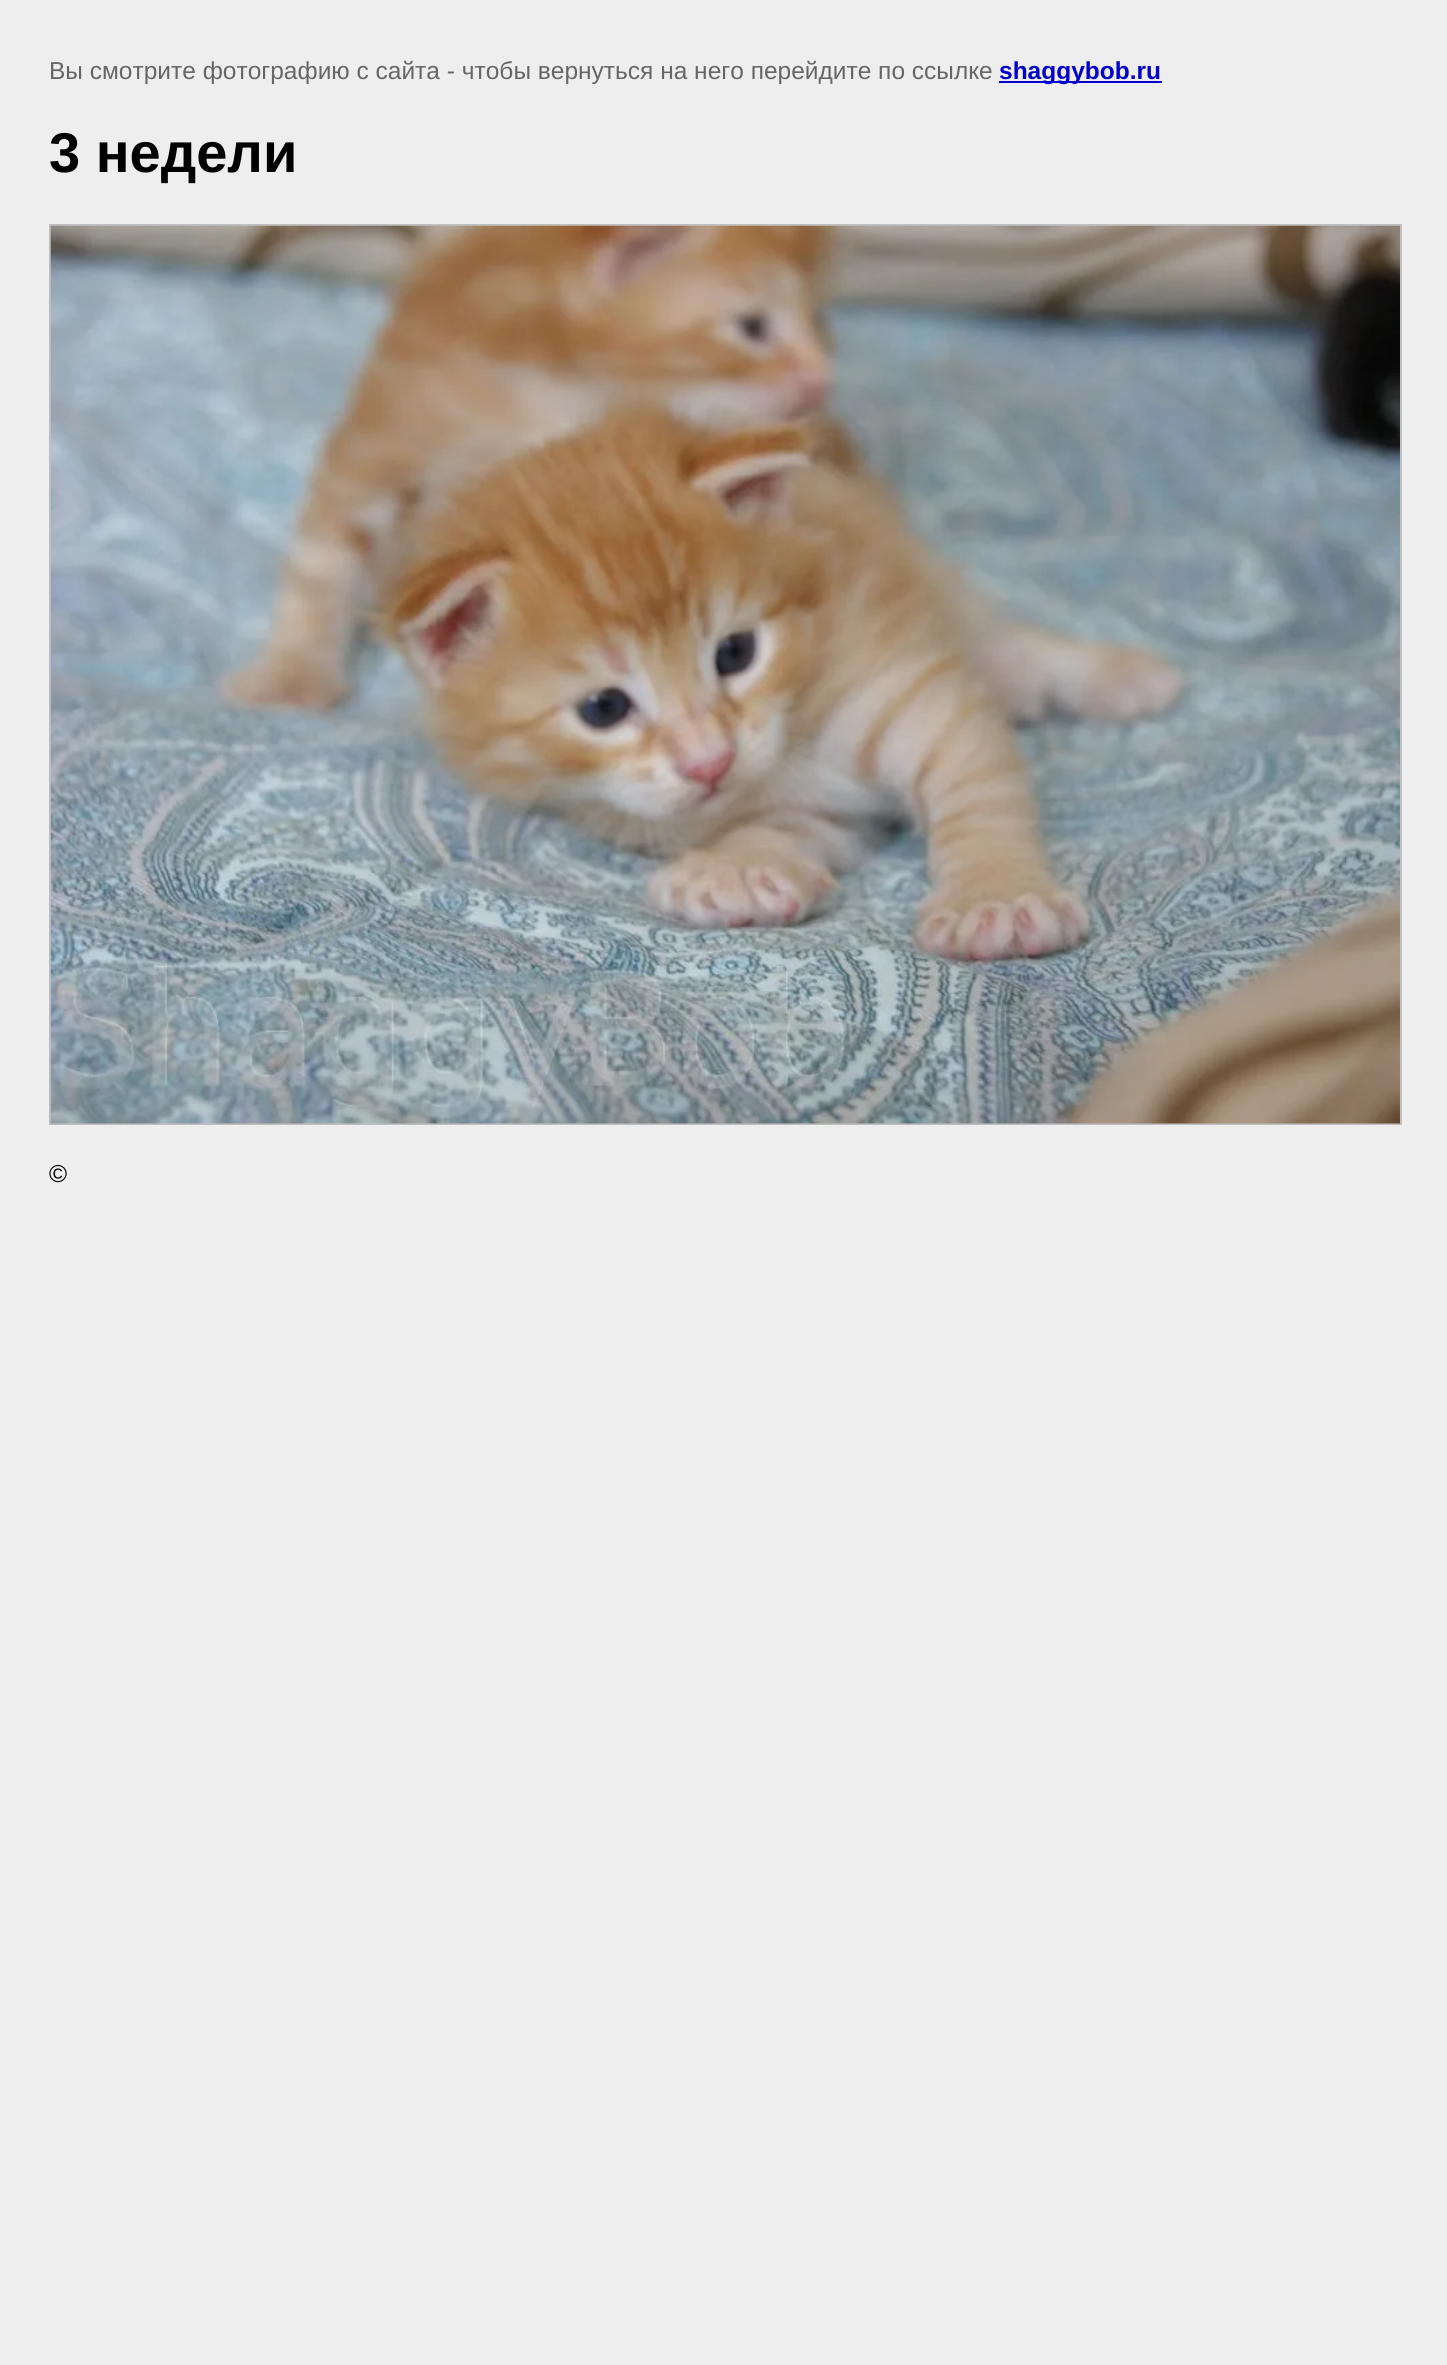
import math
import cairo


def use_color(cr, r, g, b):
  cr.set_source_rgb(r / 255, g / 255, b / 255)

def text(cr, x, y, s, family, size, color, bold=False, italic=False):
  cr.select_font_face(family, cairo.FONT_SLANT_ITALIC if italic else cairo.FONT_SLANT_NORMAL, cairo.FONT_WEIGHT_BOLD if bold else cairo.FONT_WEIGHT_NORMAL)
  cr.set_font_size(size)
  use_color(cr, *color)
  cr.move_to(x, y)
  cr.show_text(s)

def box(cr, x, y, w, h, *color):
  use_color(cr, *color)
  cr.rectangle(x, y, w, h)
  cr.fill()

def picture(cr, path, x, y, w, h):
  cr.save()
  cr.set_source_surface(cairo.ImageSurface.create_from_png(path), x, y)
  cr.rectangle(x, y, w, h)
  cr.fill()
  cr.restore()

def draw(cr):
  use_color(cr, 238, 238, 238)
  cr.paint()
  box(cr, 999, 81, 163, 2, 0, 0, 204)
  cr.rectangle(50, 225, 1351, 899)
  use_color(cr, 192, 192, 192)
  cr.stroke()
  picture(cr, "img_01.png", 50, 225, 1350, 899)
  text(cr, 49, 79, "Вы смотрите фотографию с сайта - чтобы вернуться на него перейдите по ссылке", "Liberation Sans", 24.5, (102, 102, 102))
  text(cr, 999, 79, "shaggybob.ru", "Liberation Sans", 24.5, (0, 0, 204), bold=True)
  text(cr, 49, 172, "3 недели", "Liberation Sans", 56, (0, 0, 0), bold=True)
  text(cr, 49, 1182, "©", "Liberation Sans", 24.5, (0, 0, 0))


surface = cairo.ImageSurface(cairo.FORMAT_RGB24, 1447, 2365)
cr = cairo.Context(surface)
options = cairo.FontOptions()
options.set_hint_metrics(cairo.HINT_METRICS_OFF)
options.set_hint_style(cairo.HINT_STYLE_NONE)
cr.set_font_options(options)
cr.set_miter_limit(4)
draw(cr)
surface.write_to_png("out.png")
